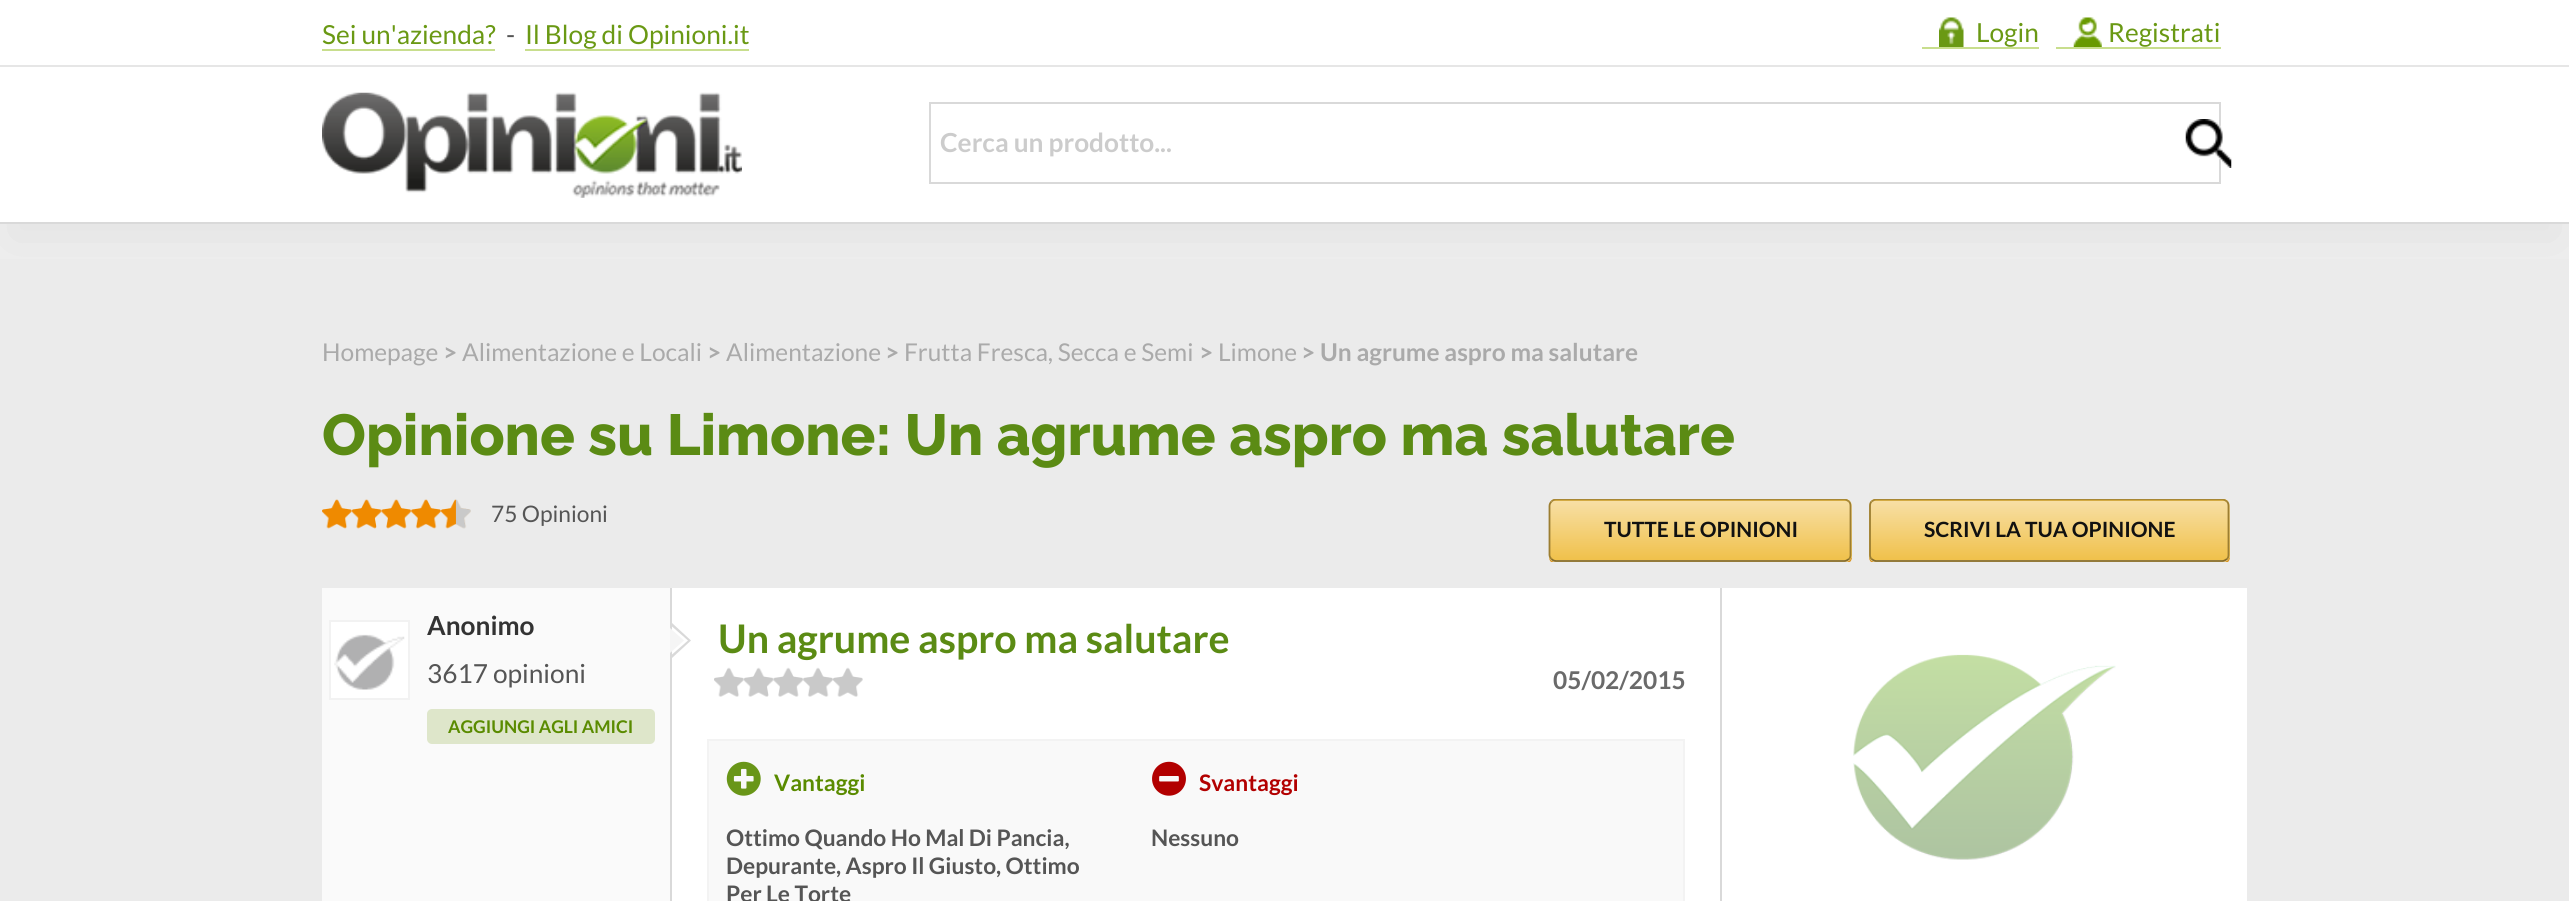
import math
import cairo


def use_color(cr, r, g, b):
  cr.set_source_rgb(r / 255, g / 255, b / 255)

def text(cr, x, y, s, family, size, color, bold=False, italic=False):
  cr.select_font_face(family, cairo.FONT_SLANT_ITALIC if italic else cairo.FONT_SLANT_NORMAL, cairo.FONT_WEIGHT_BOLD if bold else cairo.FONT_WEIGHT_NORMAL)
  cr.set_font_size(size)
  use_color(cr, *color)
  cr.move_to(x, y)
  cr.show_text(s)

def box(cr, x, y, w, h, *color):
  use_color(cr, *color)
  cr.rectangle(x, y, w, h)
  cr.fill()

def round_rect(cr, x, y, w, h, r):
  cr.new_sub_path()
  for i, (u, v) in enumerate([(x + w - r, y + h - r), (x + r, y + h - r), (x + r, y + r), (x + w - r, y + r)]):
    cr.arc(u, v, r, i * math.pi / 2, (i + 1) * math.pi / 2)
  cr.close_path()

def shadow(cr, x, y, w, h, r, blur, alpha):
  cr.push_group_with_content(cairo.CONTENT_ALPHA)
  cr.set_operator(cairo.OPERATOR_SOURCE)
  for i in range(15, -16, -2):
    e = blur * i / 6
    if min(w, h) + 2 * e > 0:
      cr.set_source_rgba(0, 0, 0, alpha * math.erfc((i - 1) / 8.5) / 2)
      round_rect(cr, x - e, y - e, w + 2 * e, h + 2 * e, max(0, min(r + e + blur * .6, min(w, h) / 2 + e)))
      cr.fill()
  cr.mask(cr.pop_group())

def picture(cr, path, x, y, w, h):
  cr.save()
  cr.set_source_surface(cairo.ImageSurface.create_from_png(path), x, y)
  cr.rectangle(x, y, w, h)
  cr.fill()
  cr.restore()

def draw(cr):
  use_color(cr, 244, 244, 244)
  cr.paint()
  use_color(cr, 50, 50, 50)
  shadow(cr, 0, 26, 2569, 224, 0, 39.5, 0.1)
  box(cr, 0, 0, 2569, 222, 255, 255, 255)
  box(cr, 0, 65, 2569, 2, 230, 230, 230)
  box(cr, 322, 49, 173, 2, 200, 222, 141)
  box(cr, 525, 49, 224, 2, 200, 222, 141)
  box(cr, 1922, 47, 117, 2, 200, 222, 141)
  picture(cr, "img_01.png", 1939, 17, 25, 30)
  box(cr, 2056, 47, 165, 2, 200, 222, 141)
  picture(cr, "img_02.png", 2073, 17, 29, 30)
  box(cr, 0, 222, 2569, 2, 217, 217, 217)
  picture(cr, "img_03.png", 322, 92, 420, 106)
  cr.rectangle(930, 103, 1290, 80)
  cr.stroke()
  picture(cr, "img_04.png", 2185, 119, 47, 49)
  box(cr, 0, 259, 2569, 642, 235, 235, 235)
  picture(cr, "img_05.png", 322, 499, 30, 30)
  picture(cr, "img_06.png", 351, 499, 31, 30)
  picture(cr, "img_07.png", 381, 499, 31, 30)
  picture(cr, "img_08.png", 411, 499, 30, 30)
  picture(cr, "img_09.png", 441, 499, 30, 30)
  cr.save()
  cr.rectangle(322, 499, 1925, 63)
  cr.clip()
  use_color(cr, 218, 150, 34)
  cr.new_path()
  cr.move_to(1549, 557)
  cr.curve_to(1549, 561, 1552, 564, 1556, 564)
  cr.line_to(1845, 564)
  cr.curve_to(1849, 564, 1852, 561, 1852, 557)
  cr.line_to(1852, 508)
  cr.line_to(1851, 505)
  cr.line_to(1852, 555)
  cr.curve_to(1852, 559, 1848, 562, 1844, 562)
  cr.line_to(1556, 562)
  cr.curve_to(1553, 562, 1550, 560, 1549, 557)
  cr.close_path()
  cr.fill()
  cr.restore()
  cr.save()
  round_rect(cr, 1549, 499, 303, 63, 7)
  cr.clip()
  gradient = cairo.LinearGradient(1700, 441, 1700, 501)
  gradient.add_color_stop_rgba(0, 0.969, 0.875, 0.647, 1)
  gradient.add_color_stop_rgba(1, 0.941, 0.757, 0.294, 1)
  cr.set_source(gradient)
  cr.rectangle(1549, 499, 303, 2)
  cr.fill()
  gradient = cairo.LinearGradient(1700, 501, 1700, 560)
  gradient.add_color_stop_rgba(0, 0.969, 0.875, 0.647, 1)
  gradient.add_color_stop_rgba(1, 0.941, 0.757, 0.294, 1)
  cr.set_source(gradient)
  cr.rectangle(1549, 501, 303, 59)
  cr.fill()
  gradient = cairo.LinearGradient(1700, 560, 1700, 620)
  gradient.add_color_stop_rgba(0, 0.969, 0.875, 0.647, 1)
  gradient.add_color_stop_rgba(1, 0.941, 0.757, 0.294, 1)
  cr.set_source(gradient)
  cr.rectangle(1549, 560, 303, 2)
  cr.fill()
  cr.restore()
  cr.save()
  cr.rectangle(322, 499, 1925, 63)
  cr.clip()
  cr.new_path()
  cr.move_to(1551.5, 501.5)
  cr.curve_to(1552.5, 500.5, 1554, 499.5, 1556, 499.5)
  cr.line_to(1844.5, 499.5)
  cr.curve_to(1846, 499.5, 1847.5, 500.5, 1849, 501.5)
  use_color(cr, 168, 135, 52)
  cr.set_line_width(1.8)
  cr.stroke()
  cr.restore()
  cr.new_path()
  cr.move_to(1849, 501.5)
  cr.curve_to(1850, 502.5, 1850.5, 504, 1850.5, 506)
  cr.line_to(1850.5, 555)
  cr.curve_to(1850.5, 556.5, 1850, 558, 1849, 559)
  use_color(cr, 156, 126, 49)
  cr.set_line_width(1.8)
  cr.stroke()
  cr.new_path()
  cr.move_to(1849, 559)
  cr.curve_to(1847.5, 560, 1846, 561, 1844.5, 561)
  cr.line_to(1556, 561)
  cr.curve_to(1554, 561, 1552.5, 560, 1551.5, 559)
  use_color(cr, 132, 106, 41)
  cr.stroke()
  cr.new_path()
  cr.move_to(1551.5, 559)
  cr.curve_to(1550.5, 558, 1549.5, 556.5, 1549.5, 555)
  cr.line_to(1549.5, 506)
  cr.curve_to(1549.5, 504, 1550.5, 502.5, 1551.5, 501.5)
  use_color(cr, 156, 126, 49)
  cr.stroke()
  cr.save()
  cr.rectangle(322, 499, 1925, 63)
  cr.clip()
  use_color(cr, 218, 150, 34)
  cr.new_path()
  cr.move_to(1869, 555)
  cr.line_to(1869, 557)
  cr.curve_to(1869, 561, 1872, 564, 1876, 564)
  cr.line_to(2223, 564)
  cr.curve_to(2227, 564, 2230, 561, 2230, 557)
  cr.line_to(2230, 508)
  cr.line_to(2229, 505)
  cr.line_to(2230, 555)
  cr.curve_to(2230, 559, 2226, 562, 2222, 562)
  cr.line_to(1876, 562)
  cr.curve_to(1872, 562, 1869, 559, 1869, 555)
  cr.close_path()
  cr.fill()
  cr.restore()
  cr.save()
  round_rect(cr, 1869, 499, 361, 63, 7)
  cr.clip()
  gradient = cairo.LinearGradient(2049, 441, 2049, 501)
  gradient.add_color_stop_rgba(0, 0.969, 0.875, 0.647, 1)
  gradient.add_color_stop_rgba(1, 0.941, 0.757, 0.294, 1)
  cr.set_source(gradient)
  cr.rectangle(1869, 499, 361, 2)
  cr.fill()
  gradient = cairo.LinearGradient(2049, 501, 2049, 560)
  gradient.add_color_stop_rgba(0, 0.969, 0.875, 0.647, 1)
  gradient.add_color_stop_rgba(1, 0.941, 0.757, 0.294, 1)
  cr.set_source(gradient)
  cr.rectangle(1869, 501, 361, 59)
  cr.fill()
  gradient = cairo.LinearGradient(2049, 560, 2049, 620)
  gradient.add_color_stop_rgba(0, 0.969, 0.875, 0.647, 1)
  gradient.add_color_stop_rgba(1, 0.941, 0.757, 0.294, 1)
  cr.set_source(gradient)
  cr.rectangle(1869, 560, 361, 2)
  cr.fill()
  cr.restore()
  cr.save()
  cr.rectangle(322, 499, 1925, 63)
  cr.clip()
  cr.new_path()
  cr.move_to(1871.5, 501.5)
  cr.curve_to(1873, 500.5, 1874.5, 499.5, 1876, 499.5)
  cr.line_to(2222.5, 499.5)
  cr.curve_to(2224, 499.5, 2225.5, 500.5, 2227, 501.5)
  use_color(cr, 168, 135, 52)
  cr.stroke()
  cr.restore()
  cr.new_path()
  cr.move_to(2227, 501.5)
  cr.curve_to(2228, 502.5, 2228.5, 504, 2228.5, 506)
  cr.line_to(2228.5, 555)
  cr.curve_to(2228.5, 556.5, 2228, 558, 2227, 559)
  cr.stroke()
  cr.new_path()
  cr.move_to(2227, 559)
  cr.curve_to(2225.5, 560, 2224, 561, 2222.5, 561)
  cr.line_to(1876, 561)
  cr.curve_to(1874.5, 561, 1873, 560, 1871.5, 559)
  use_color(cr, 132, 106, 41)
  cr.stroke()
  cr.new_path()
  cr.move_to(1871.5, 559)
  cr.curve_to(1870.5, 558, 1870, 556.5, 1870, 555)
  cr.line_to(1870, 506)
  cr.curve_to(1870, 504, 1870.5, 502.5, 1871.5, 501.5)
  use_color(cr, 156, 126, 49)
  cr.stroke()
  box(cr, 672, 588, 1575, 313, 255, 255, 255)
  box(cr, 322, 588, 348, 313, 250, 250, 250)
  box(cr, 670, 588, 2, 313, 217, 217, 217)
  use_color(cr, 255, 255, 255)
  cr.rectangle(330, 621, 79, 78)
  cr.fill_preserve()
  use_color(cr, 242, 242, 242)
  cr.set_line_width(2)
  cr.stroke()
  picture(cr, "img_10.png", 334, 634, 71, 56)
  use_color(cr, 222, 230, 202)
  round_rect(cr, 427, 709, 228, 35, 5)
  cr.fill()
  use_color(cr, 217, 217, 217)
  cr.new_path()
  cr.move_to(672, 658)
  cr.line_to(672, 623)
  cr.line_to(691, 640.5)
  cr.close_path()
  cr.fill()
  use_color(cr, 255, 255, 255)
  cr.new_path()
  cr.move_to(672, 654.5)
  cr.line_to(672, 626.5)
  cr.line_to(688, 640.5)
  cr.close_path()
  cr.fill()
  use_color(cr, 245, 245, 245)
  cr.new_path()
  cr.move_to(670, 653)
  cr.line_to(670, 628)
  cr.line_to(684, 640.5)
  cr.close_path()
  cr.fill()
  box(cr, 1720, 588, 2, 313, 217, 217, 217)
  picture(cr, "img_11.png", 714, 667, 30, 30)
  picture(cr, "img_12.png", 743, 667, 31, 30)
  picture(cr, "img_13.png", 773, 667, 31, 30)
  picture(cr, "img_14.png", 803, 667, 30, 30)
  picture(cr, "img_11.png", 833, 667, 30, 30)
  use_color(cr, 249, 249, 249)
  cr.rectangle(708, 740, 976, 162)
  cr.fill_preserve()
  use_color(cr, 243, 243, 243)
  cr.stroke()
  picture(cr, "img_15.png", 726, 761, 35, 35)
  picture(cr, "img_16.png", 1152, 761, 34, 35)
  picture(cr, "img_17.png", 1853, 654, 263, 206)
  text(cr, 322, 44, "Sei un'azienda?", "Lato", 26.25, (106, 153, 20))
  text(cr, 506, 44, "-", "Lato", 26.25, (85, 85, 85))
  text(cr, 525, 44, "Il Blog di Opinioni.it", "Lato", 26.25, (106, 153, 20))
  text(cr, 1976, 42, "Login", "Lato", 26.25, (106, 153, 20))
  text(cr, 2108, 42, "Registrati", "Lato", 26.25, (106, 153, 20))
  text(cr, 940, 152, "Cerca un prodotto...", "Lato", 26.25, (204, 204, 204), bold=True)
  text(cr, 322, 361, "Homepage", "Lato", 24.5, (170, 170, 170))
  text(cr, 443, 361, ">", "Lato", 24.5, (170, 170, 170), bold=True)
  text(cr, 462, 361, "Alimentazione e Locali", "Lato", 24.5, (170, 170, 170))
  text(cr, 707, 361, ">", "Lato", 24.5, (170, 170, 170), bold=True)
  text(cr, 726, 361, "Alimentazione", "Lato", 24.5, (170, 170, 170))
  text(cr, 885, 361, ">", "Lato", 24.5, (170, 170, 170), bold=True)
  text(cr, 904, 361, "Frutta Fresca, Secca e Semi", "Lato", 24.5, (170, 170, 170))
  text(cr, 1199, 361, ">", "Lato", 24.5, (170, 170, 170), bold=True)
  text(cr, 1218, 361, "Limone", "Lato", 24.5, (170, 170, 170))
  text(cr, 1301, 361, "> Un agrume aspro ma salutare", "Lato", 24.5, (170, 170, 170), bold=True)
  text(cr, 322, 455, "Opinione su Limone: Un agrume aspro ma salutare", "Raleway ExtraBold", 57.75, (91, 139, 20))
  text(cr, 491, 522, "75 Opinioni", "Lato", 22.75, (85, 85, 85))
  text(cr, 1604, 537, "TUTTE LE OPINIONI", "Lato", 21, (17, 17, 17), bold=True)
  text(cr, 1924, 537, "SCRIVI LA TUA OPINIONE", "Lato", 21, (17, 17, 17), bold=True)
  text(cr, 427, 635, "Anonimo", "Lato", 26.25, (51, 51, 51), bold=True)
  text(cr, 427, 683, "3617 opinioni", "Lato", 26.25, (85, 85, 85))
  text(cr, 448, 733, "AGGIUNGI AGLI AMICI", "Lato", 17.5, (90, 139, 0), bold=True)
  text(cr, 718, 653, "Un agrume aspro ma salutare", "Lato", 39.4, (91, 139, 20), bold=True)
  text(cr, 1553, 689, "05/02/2015", "Lato", 24.5, (106, 106, 106), bold=True)
  text(cr, 774, 791, "Vantaggi", "Lato", 22.75, (90, 139, 0), bold=True)
  text(cr, 726, 846, "Ottimo Quando Ho Mal Di Pancia,", "Lato", 22.75, (85, 85, 85), bold=True)
  text(cr, 726, 874, "Depurante, Aspro Il Giusto, Ottimo", "Lato", 22.75, (85, 85, 85), bold=True)
  text(cr, 726, 902, "Per Le Torte", "Lato", 22.75, (85, 85, 85), bold=True)
  text(cr, 1199, 791, "Svantaggi", "Lato", 22.75, (178, 0, 0), bold=True)
  text(cr, 1151, 846, "Nessuno", "Lato", 22.75, (85, 85, 85), bold=True)


surface = cairo.ImageSurface(cairo.FORMAT_RGB24, 2569, 901)
cr = cairo.Context(surface)
options = cairo.FontOptions()
options.set_hint_metrics(cairo.HINT_METRICS_OFF)
options.set_hint_style(cairo.HINT_STYLE_NONE)
cr.set_font_options(options)
cr.set_miter_limit(4)
draw(cr)
surface.write_to_png("out.png")
